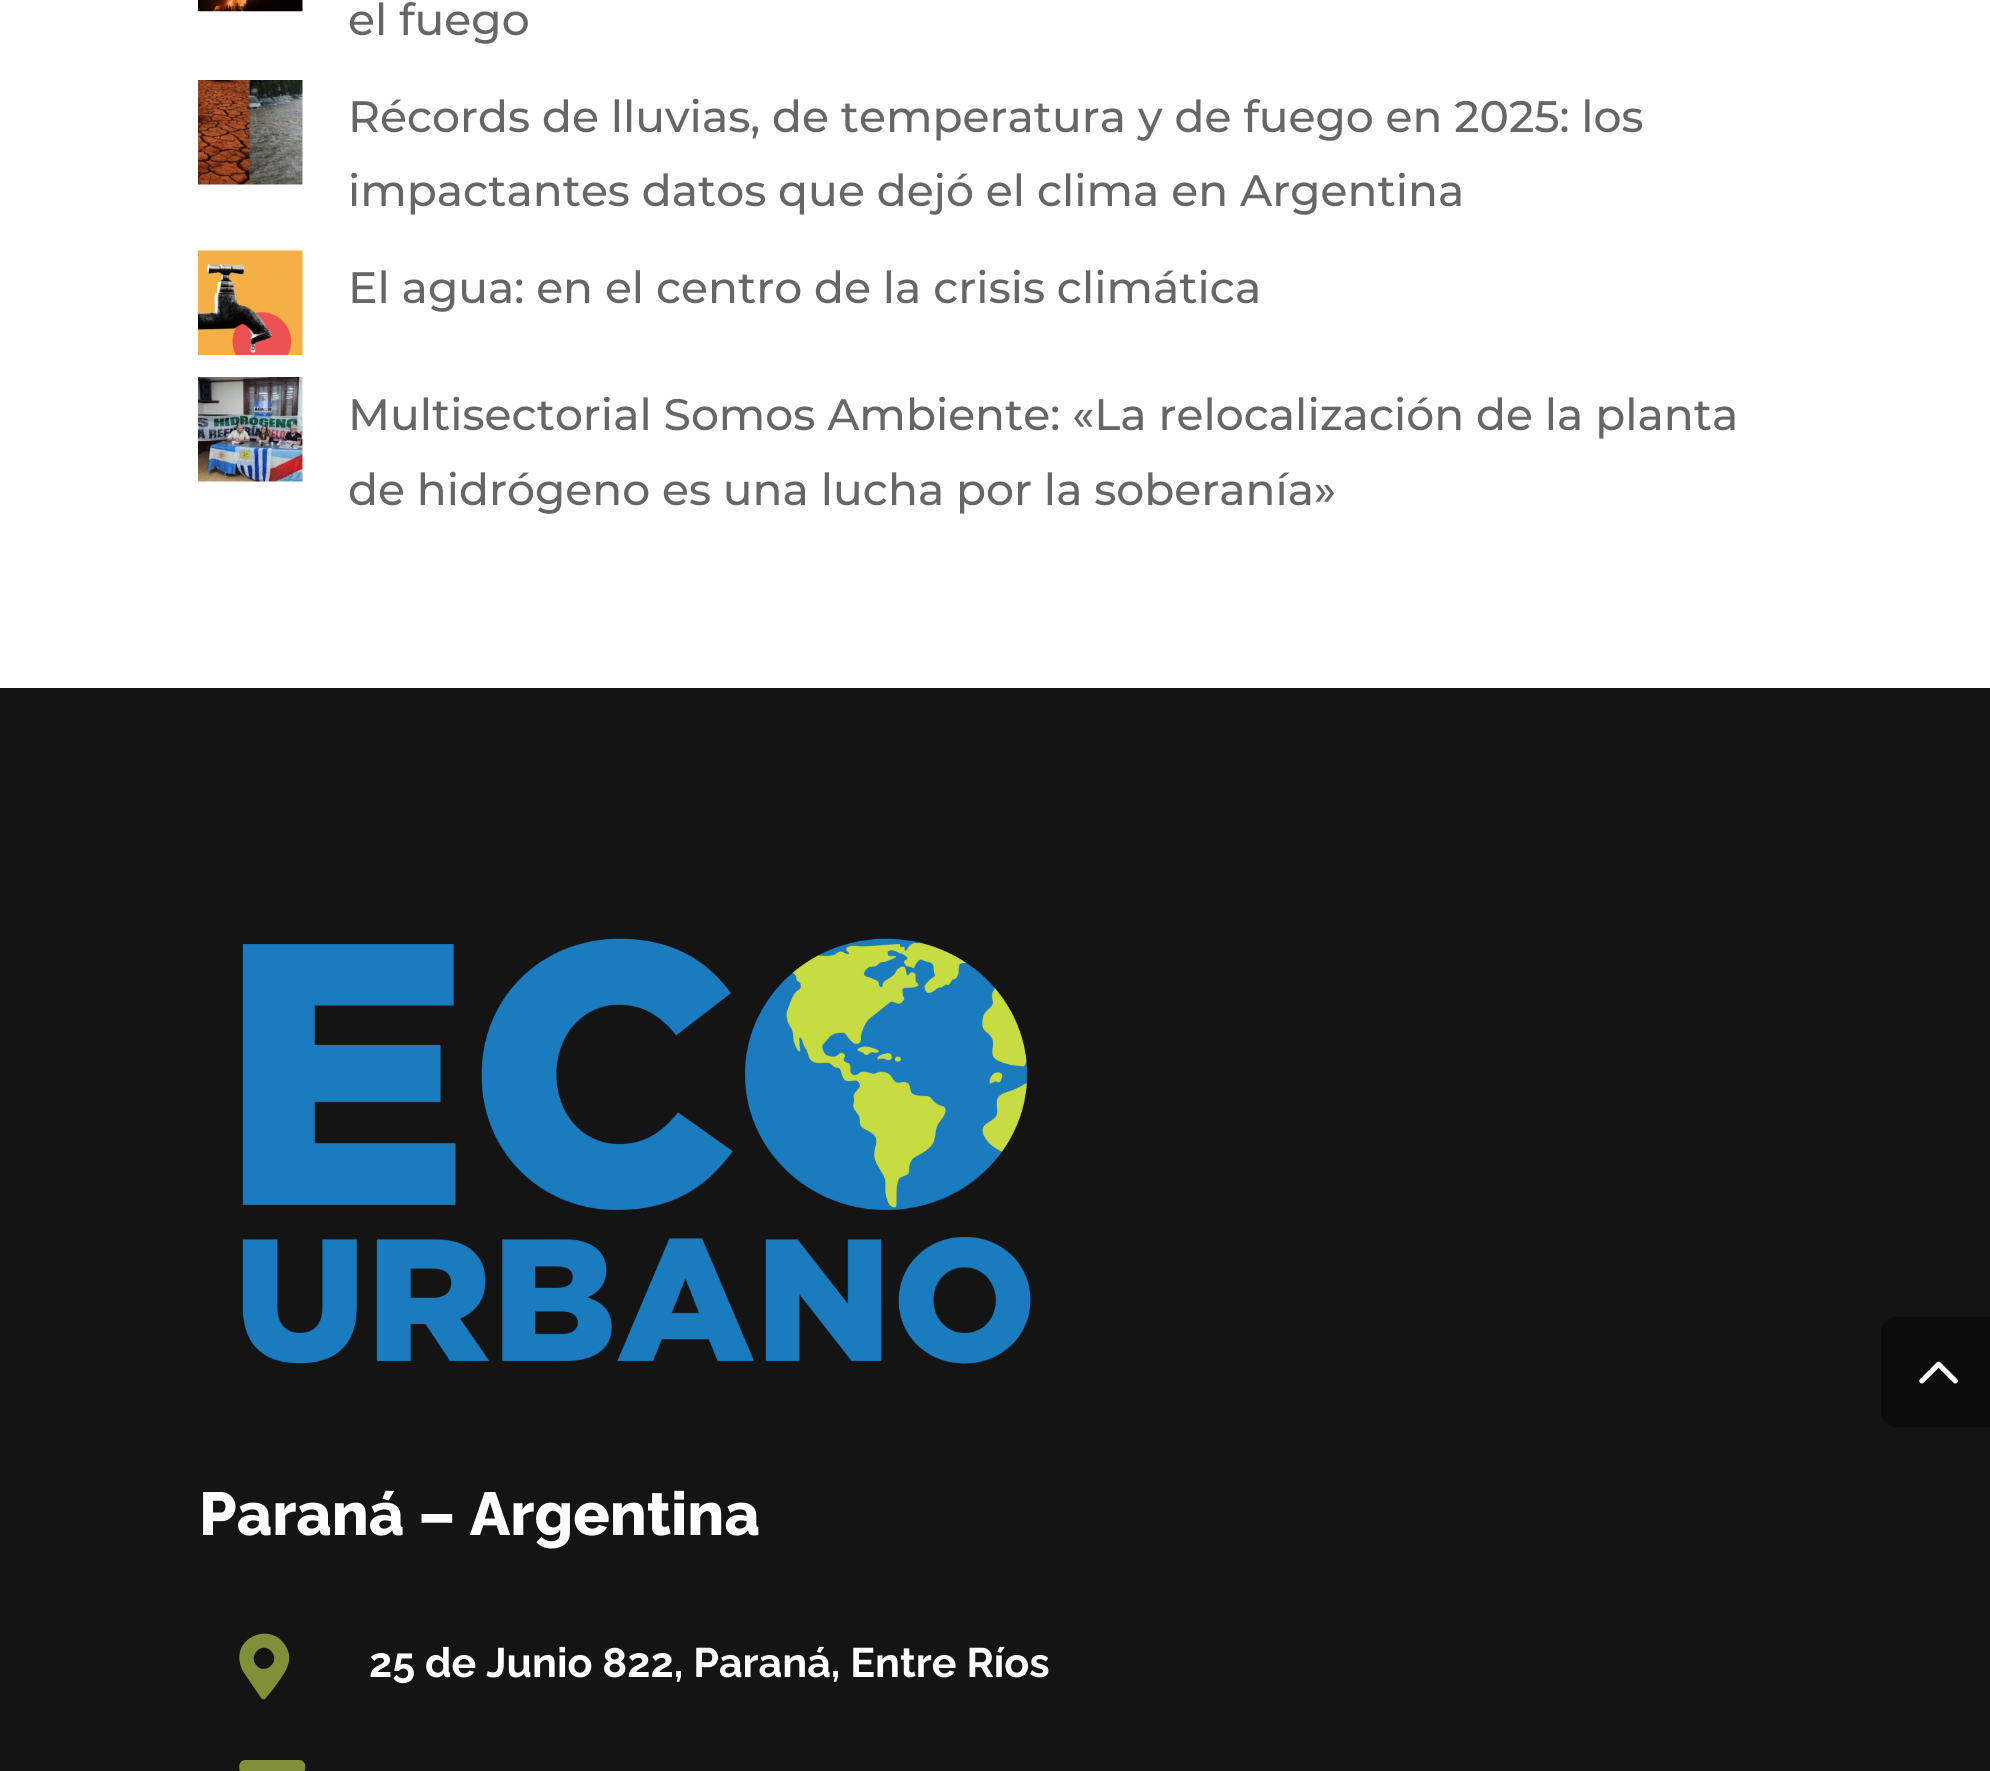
import math
import cairo


def use_color(cr, r, g, b):
  cr.set_source_rgb(r / 255, g / 255, b / 255)

def text(cr, x, y, s, family, size, color, bold=False, italic=False):
  cr.select_font_face(family, cairo.FONT_SLANT_ITALIC if italic else cairo.FONT_SLANT_NORMAL, cairo.FONT_WEIGHT_BOLD if bold else cairo.FONT_WEIGHT_NORMAL)
  cr.set_font_size(size)
  use_color(cr, *color)
  cr.move_to(x, y)
  cr.show_text(s)

def box(cr, x, y, w, h, *color):
  use_color(cr, *color)
  cr.rectangle(x, y, w, h)
  cr.fill()

def picture(cr, path, x, y, w, h):
  cr.save()
  cr.set_source_surface(cairo.ImageSurface.create_from_png(path), x, y)
  cr.rectangle(x, y, w, h)
  cr.fill()
  cr.restore()

def draw(cr):
  use_color(cr, 255, 255, 255)
  cr.paint()
  picture(cr, "img_01.png", 198, 0, 105, 12)
  picture(cr, "img_02.png", 198, 80, 105, 105)
  picture(cr, "img_03.png", 198, 250, 105, 105)
  picture(cr, "img_04.png", 198, 377, 105, 105)
  box(cr, 0, 688, 1990, 1083, 20, 20, 20)
  picture(cr, "img_05.png", 242, 938, 789, 426)
  use_color(cr, 128, 144, 56)
  cr.new_path()
  cr.move_to(261, 1698)
  cr.line_to(251, 1683)
  cr.curve_to(247, 1677, 241, 1670, 240, 1663)
  cr.curve_to(234, 1637, 270, 1622, 285, 1645)
  cr.curve_to(296, 1661, 283, 1675, 274, 1688)
  cr.line_to(265, 1699)
  cr.curve_to(264, 1700, 262, 1699, 261, 1698)
  cr.close_path()
  cr.move_to(257, 1666)
  cr.curve_to(266, 1675, 281, 1661, 271, 1651)
  cr.curve_to(262, 1641, 247, 1656, 257, 1666)
  cr.close_path()
  cr.fill()
  picture(cr, "img_06.png", 239, 1760, 67, 11)
  use_color(cr, 12, 12, 12)
  cr.new_path()
  cr.move_to(1895, 1317)
  cr.line_to(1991, 1317)
  cr.line_to(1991, 1427)
  cr.line_to(1895, 1427)
  cr.curve_to(1887.5, 1427, 1881, 1420.5, 1881, 1413)
  cr.line_to(1881, 1331)
  cr.curve_to(1881, 1323.5, 1887.5, 1317, 1895, 1317)
  cr.close_path()
  cr.fill()
  picture(cr, "img_07.png", 1919, 1361, 39, 23)
  text(cr, 348, 35, "el fuego", "Montserrat Medium", 44, (102, 102, 102))
  text(cr, 348, 132, "Récords de lluvias, de temperatura y de fuego en 2025: los", "Montserrat Medium", 44, (102, 102, 102))
  text(cr, 348, 206, "impactantes datos que dejó el clima en Argentina", "Montserrat Medium", 44, (102, 102, 102))
  text(cr, 348, 303, "El agua: en el centro de la crisis climática", "Montserrat Medium", 44, (102, 102, 102))
  text(cr, 348, 430, "Multisectorial Somos Ambiente: «La relocalización de la planta", "Montserrat Medium", 44, (102, 102, 102))
  text(cr, 348, 505, "de hidrógeno es una lucha por la soberanía»", "Montserrat Medium", 44, (102, 102, 102))
  text(cr, 199, 1535, "Paraná – Argentina", "Raleway ExtraBold", 60.5, (255, 255, 255))
  text(cr, 369, 1677, "25 de Junio 822, Paraná, Entre Ríos", "Raleway", 41.25, (255, 255, 255), bold=True)


surface = cairo.ImageSurface(cairo.FORMAT_RGB24, 1990, 1771)
cr = cairo.Context(surface)
options = cairo.FontOptions()
options.set_hint_metrics(cairo.HINT_METRICS_OFF)
options.set_hint_style(cairo.HINT_STYLE_NONE)
cr.set_font_options(options)
cr.set_miter_limit(4)
draw(cr)
surface.write_to_png("out.png")
